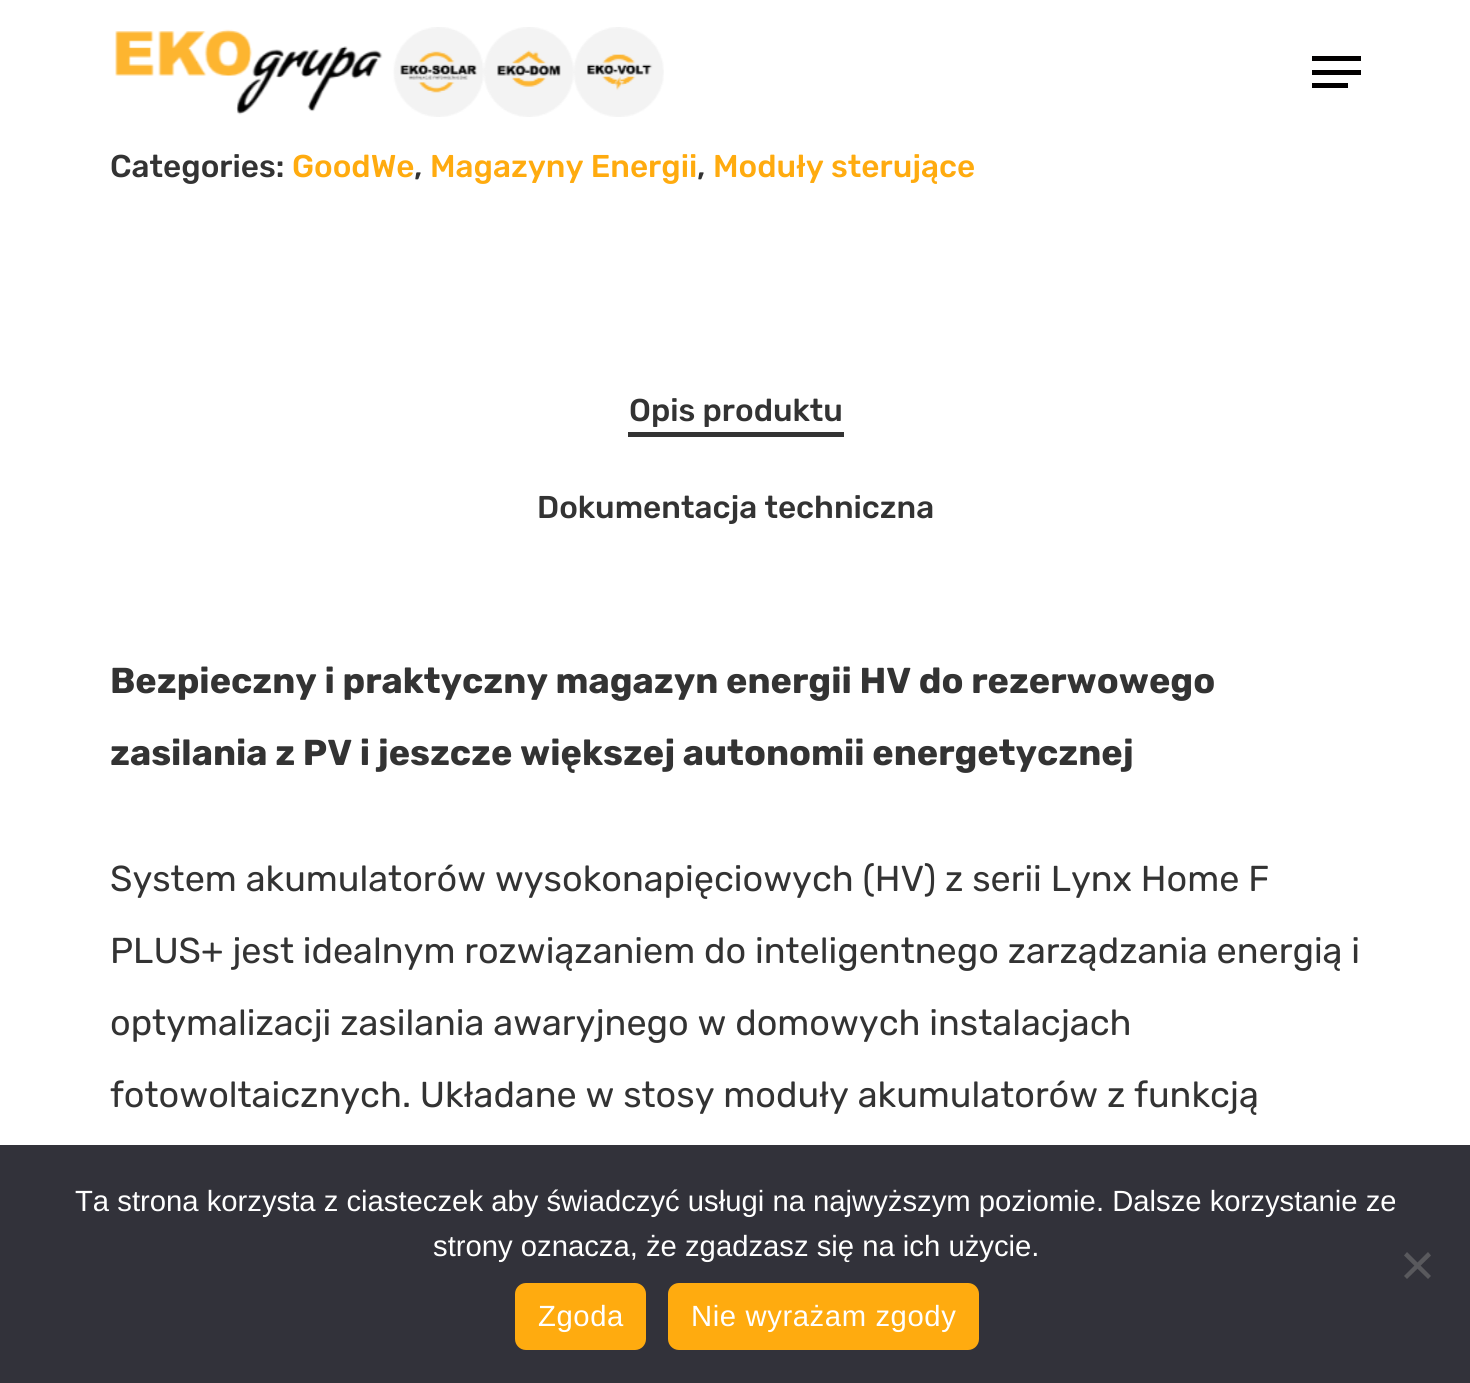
import math
import cairo


def use_color(cr, r, g, b):
  cr.set_source_rgb(r / 255, g / 255, b / 255)

def text(cr, x, y, s, family, size, color, bold=False, italic=False):
  cr.select_font_face(family, cairo.FONT_SLANT_ITALIC if italic else cairo.FONT_SLANT_NORMAL, cairo.FONT_WEIGHT_BOLD if bold else cairo.FONT_WEIGHT_NORMAL)
  cr.set_font_size(size)
  use_color(cr, *color)
  cr.move_to(x, y)
  cr.show_text(s)

def spaced_text(cr, x, y, s, letter, word):
  cr.move_to(x, y)
  for ch in s:
    cr.show_text(ch)
    cr.rel_move_to(letter + word * (ch == ' '), 0)

def box(cr, x, y, w, h, *color):
  use_color(cr, *color)
  cr.rectangle(x, y, w, h)
  cr.fill()

def round_rect(cr, x, y, w, h, r):
  cr.new_sub_path()
  for i, (u, v) in enumerate([(x + w - r, y + h - r), (x + r, y + h - r), (x + r, y + r), (x + w - r, y + r)]):
    cr.arc(u, v, r, i * math.pi / 2, (i + 1) * math.pi / 2)
  cr.close_path()

def picture(cr, path, x, y, w, h):
  cr.save()
  cr.set_source_surface(cairo.ImageSurface.create_from_png(path), x, y)
  cr.rectangle(x, y, w, h)
  cr.fill()
  cr.restore()

def draw(cr):
  use_color(cr, 255, 255, 255)
  cr.paint()
  picture(cr, "img_01.png", 115, 27, 549, 90)
  box(cr, 1312, 56, 49, 5, 2, 0, 0)
  box(cr, 1312, 83, 36, 5, 2, 0, 0)
  box(cr, 1312, 70, 49, 5, 2, 0, 0)
  box(cr, 628, 432, 216, 5, 51, 51, 51)
  box(cr, 0, 1145, 1470, 238, 50, 50, 58)
  use_color(cr, 89, 89, 93)
  cr.new_path()
  cr.move_to(1428, 1252)
  cr.line_to(1431, 1255.5)
  cr.line_to(1407, 1279)
  cr.line_to(1404, 1276)
  cr.close_path()
  cr.fill()
  cr.new_path()
  cr.move_to(1404, 1255.5)
  cr.line_to(1407, 1252)
  cr.line_to(1431, 1276)
  cr.line_to(1428, 1279)
  cr.close_path()
  cr.fill()
  use_color(cr, 255, 171, 15)
  round_rect(cr, 515, 1283, 131, 67, 11)
  cr.fill()
  round_rect(cr, 668, 1283, 311, 67, 11)
  cr.fill()
  text(cr, 110, 177, "Categories:", "Rubik Medium", 31.5, (51, 51, 51))
  text(cr, 292, 177, "GoodWe", "Rubik Medium", 31.5, (255, 171, 15))
  text(cr, 414, 177, ",", "Rubik Medium", 31.5, (51, 51, 51))
  text(cr, 430, 177, "Magazyny Energii", "Rubik Medium", 31.5, (255, 171, 15))
  text(cr, 697, 177, ",", "Rubik Medium", 31.5, (51, 51, 51))
  text(cr, 713, 177, "Moduły sterujące", "Rubik Medium", 31.5, (255, 171, 15))
  text(cr, 629, 421, "Opis produktu", "Rubik Medium", 31.5, (51, 51, 51))
  text(cr, 537, 518, "Dokumentacja techniczna", "Rubik Medium", 31.5, (51, 51, 51))
  text(cr, 110, 693, "Bezpieczny i praktyczny magazyn energii HV do rezerwowego", "Rubik", 36, (51, 51, 51), bold=True)
  text(cr, 110, 765, "zasilania z PV i jeszcze większej autonomii energetycznej", "Rubik", 36, (51, 51, 51), bold=True)
  text(cr, 110, 891, "System akumulatorów wysokonapięciowych (HV) z serii Lynx Home F", "Rubik Light", 36, (51, 51, 51))
  text(cr, 110, 963, "PLUS+ jest idealnym rozwiązaniem do inteligentnego zarządzania energią i", "Rubik Light", 36, (51, 51, 51))
  text(cr, 110, 1035, "optymalizacji zasilania awaryjnego w domowych instalacjach", "Rubik Light", 36, (51, 51, 51))
  text(cr, 110, 1107, "fotowoltaicznych. Układane w stosy moduły akumulatorów z funkcją", "Rubik Light", 36, (51, 51, 51))
  text(cr, 75, 1211, "Ta strona korzysta z ciasteczek aby świadczyć usługi na najwyższym poziomie. Dalsze korzystanie ze", "Liberation Sans", 29.25, (255, 255, 255))
  text(cr, 433, 1256, "strony oznacza, że zgadzasz się na ich użycie.", "Liberation Sans", 29.25, (255, 255, 255))
  spaced_text(cr, 538, 1326, "Zgoda", 0.6, 0)
  spaced_text(cr, 691, 1326, "Nie wyrażam zgody", 0.6, 0)


surface = cairo.ImageSurface(cairo.FORMAT_RGB24, 1470, 1383)
cr = cairo.Context(surface)
options = cairo.FontOptions()
options.set_hint_metrics(cairo.HINT_METRICS_OFF)
options.set_hint_style(cairo.HINT_STYLE_NONE)
cr.set_font_options(options)
cr.set_miter_limit(4)
draw(cr)
surface.write_to_png("out.png")
